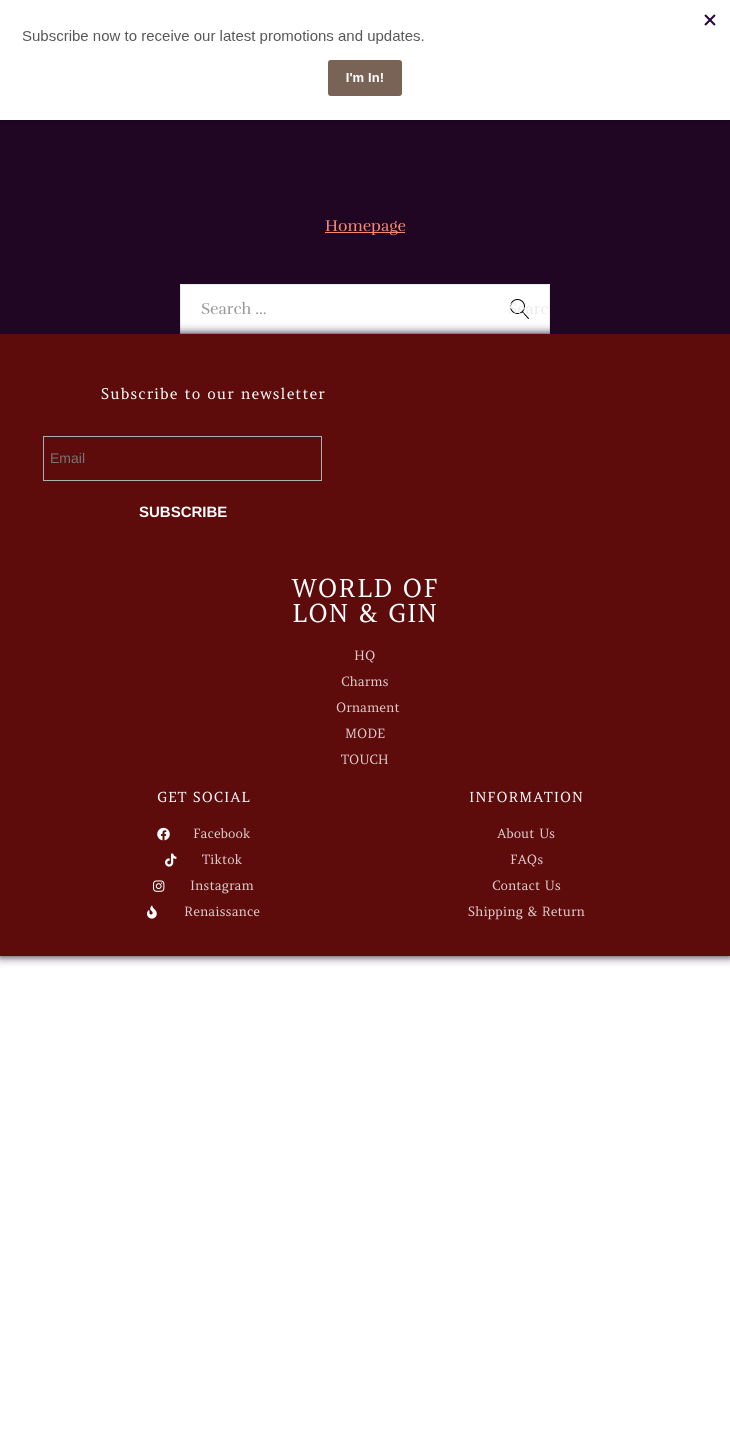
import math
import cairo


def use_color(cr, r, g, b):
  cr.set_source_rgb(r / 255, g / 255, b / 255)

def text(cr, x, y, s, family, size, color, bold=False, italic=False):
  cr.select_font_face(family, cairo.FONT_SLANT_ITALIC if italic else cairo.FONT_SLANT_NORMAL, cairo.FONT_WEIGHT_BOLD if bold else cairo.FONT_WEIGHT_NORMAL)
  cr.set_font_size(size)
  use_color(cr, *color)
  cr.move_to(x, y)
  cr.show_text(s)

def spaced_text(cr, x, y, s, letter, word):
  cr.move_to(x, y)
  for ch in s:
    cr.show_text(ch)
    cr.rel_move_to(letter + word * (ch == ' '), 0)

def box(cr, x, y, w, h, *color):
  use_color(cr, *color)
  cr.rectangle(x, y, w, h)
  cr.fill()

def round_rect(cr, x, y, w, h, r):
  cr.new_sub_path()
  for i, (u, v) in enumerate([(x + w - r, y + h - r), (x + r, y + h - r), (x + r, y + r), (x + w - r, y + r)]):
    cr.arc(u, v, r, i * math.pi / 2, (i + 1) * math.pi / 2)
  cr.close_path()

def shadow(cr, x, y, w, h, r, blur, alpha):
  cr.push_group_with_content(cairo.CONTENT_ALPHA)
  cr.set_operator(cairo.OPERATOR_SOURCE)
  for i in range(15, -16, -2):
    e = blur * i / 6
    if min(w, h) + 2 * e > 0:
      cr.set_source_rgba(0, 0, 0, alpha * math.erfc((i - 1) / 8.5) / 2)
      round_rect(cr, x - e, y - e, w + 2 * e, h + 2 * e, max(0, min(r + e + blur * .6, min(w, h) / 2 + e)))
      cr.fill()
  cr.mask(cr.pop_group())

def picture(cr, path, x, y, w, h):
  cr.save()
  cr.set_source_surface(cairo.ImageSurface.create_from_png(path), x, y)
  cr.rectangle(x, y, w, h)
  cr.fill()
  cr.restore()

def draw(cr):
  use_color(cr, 255, 255, 255)
  cr.paint()
  box(cr, 0, 120, 730, 214, 33, 6, 36)
  use_color(cr, 0, 0, 0)
  shadow(cr, 0, 3, 730, 120, 0, 3, 0.2)
  box(cr, 0, 0, 730, 120, 255, 255, 255)
  picture(cr, "img_01.png", 22, 14, 694, 82)
  box(cr, 325, 232, 80, 1, 246, 136, 114)
  use_color(cr, 255, 255, 255)
  cr.rectangle(180.5, 284.5, 369, 49)
  cr.fill_preserve()
  use_color(cr, 234, 234, 234)
  cr.set_line_width(1)
  cr.stroke()
  use_color(cr, 33, 6, 36)
  shadow(cr, 0, 334, 730, 622, 0, 5, 1)
  picture(cr, "img_02.png", 510, 299, 19, 20)
  box(cr, 0, 334, 730, 622, 94, 11, 11)
  cr.rectangle(43.5, 436.5, 278, 44)
  use_color(cr, 171, 176, 178)
  cr.stroke()
  picture(cr, "img_03.png", 157, 827, 13, 14)
  picture(cr, "img_04.png", 165, 853, 12, 14)
  picture(cr, "img_05.png", 153, 880, 12, 12)
  picture(cr, "img_06.png", 147, 905, 10, 14)
  text(cr, 325, 231, "Homepage", "Rufina", 16, (246, 136, 114))
  text(cr, 201, 314, "Search …", "Rufina", 16, (153, 153, 153))
  text(cr, 508, 314, "Searc", "Rufina", 16, (235, 235, 235))
  cr.select_font_face("Amethysta")
  cr.set_font_size(15)
  use_color(cr, 255, 255, 255)
  spaced_text(cr, 101, 399, "Subscribe to our newsletter", 1, 0)
  text(cr, 50, 463, "Email", "Liberation Sans", 14, (117, 117, 117))
  text(cr, 139, 517, "SUBSCRIBE", "Liberation Sans", 15, (255, 255, 255), bold=True)
  cr.select_font_face("Amethysta")
  cr.set_font_size(25)
  spaced_text(cr, 292, 597, "WORLD OF", 1, 0)
  spaced_text(cr, 292, 622, "LON & GIN", 1, 0)
  text(cr, 354, 660, "HQ", "Amethysta", 13, (221, 204, 204))
  text(cr, 341, 686, "Charms", "Amethysta", 13, (221, 204, 204))
  text(cr, 336, 712, "Ornament", "Amethysta", 13, (221, 204, 204))
  text(cr, 345, 738, "MODE", "Amethysta", 13, (221, 204, 204))
  text(cr, 341, 764, "TOUCH", "Amethysta", 13, (221, 204, 204))
  cr.set_font_size(14)
  use_color(cr, 255, 255, 255)
  spaced_text(cr, 157, 802, "GET SOCIAL", 1, 0)
  text(cr, 193, 838, "Facebook", "Amethysta", 13, (221, 204, 204))
  text(cr, 202, 864, "Tiktok", "Amethysta", 13, (221, 204, 204))
  text(cr, 190, 890, "Instagram", "Amethysta", 13, (221, 204, 204))
  text(cr, 184, 916, "Renaissance", "Amethysta", 13, (221, 204, 204))
  cr.set_font_size(14)
  use_color(cr, 255, 255, 255)
  spaced_text(cr, 469, 802, "INFORMATION", 1, 0)
  text(cr, 497, 838, "About Us", "Amethysta", 13, (221, 204, 204))
  text(cr, 510, 864, "FAQs", "Amethysta", 13, (221, 204, 204))
  text(cr, 492, 890, "Contact Us", "Amethysta", 13, (221, 204, 204))
  text(cr, 468, 916, "Shipping & Return", "Amethysta", 13, (221, 204, 204))


surface = cairo.ImageSurface(cairo.FORMAT_RGB24, 730, 1456)
cr = cairo.Context(surface)
options = cairo.FontOptions()
options.set_hint_metrics(cairo.HINT_METRICS_OFF)
options.set_hint_style(cairo.HINT_STYLE_NONE)
cr.set_font_options(options)
cr.set_miter_limit(4)
draw(cr)
surface.write_to_png("out.png")
